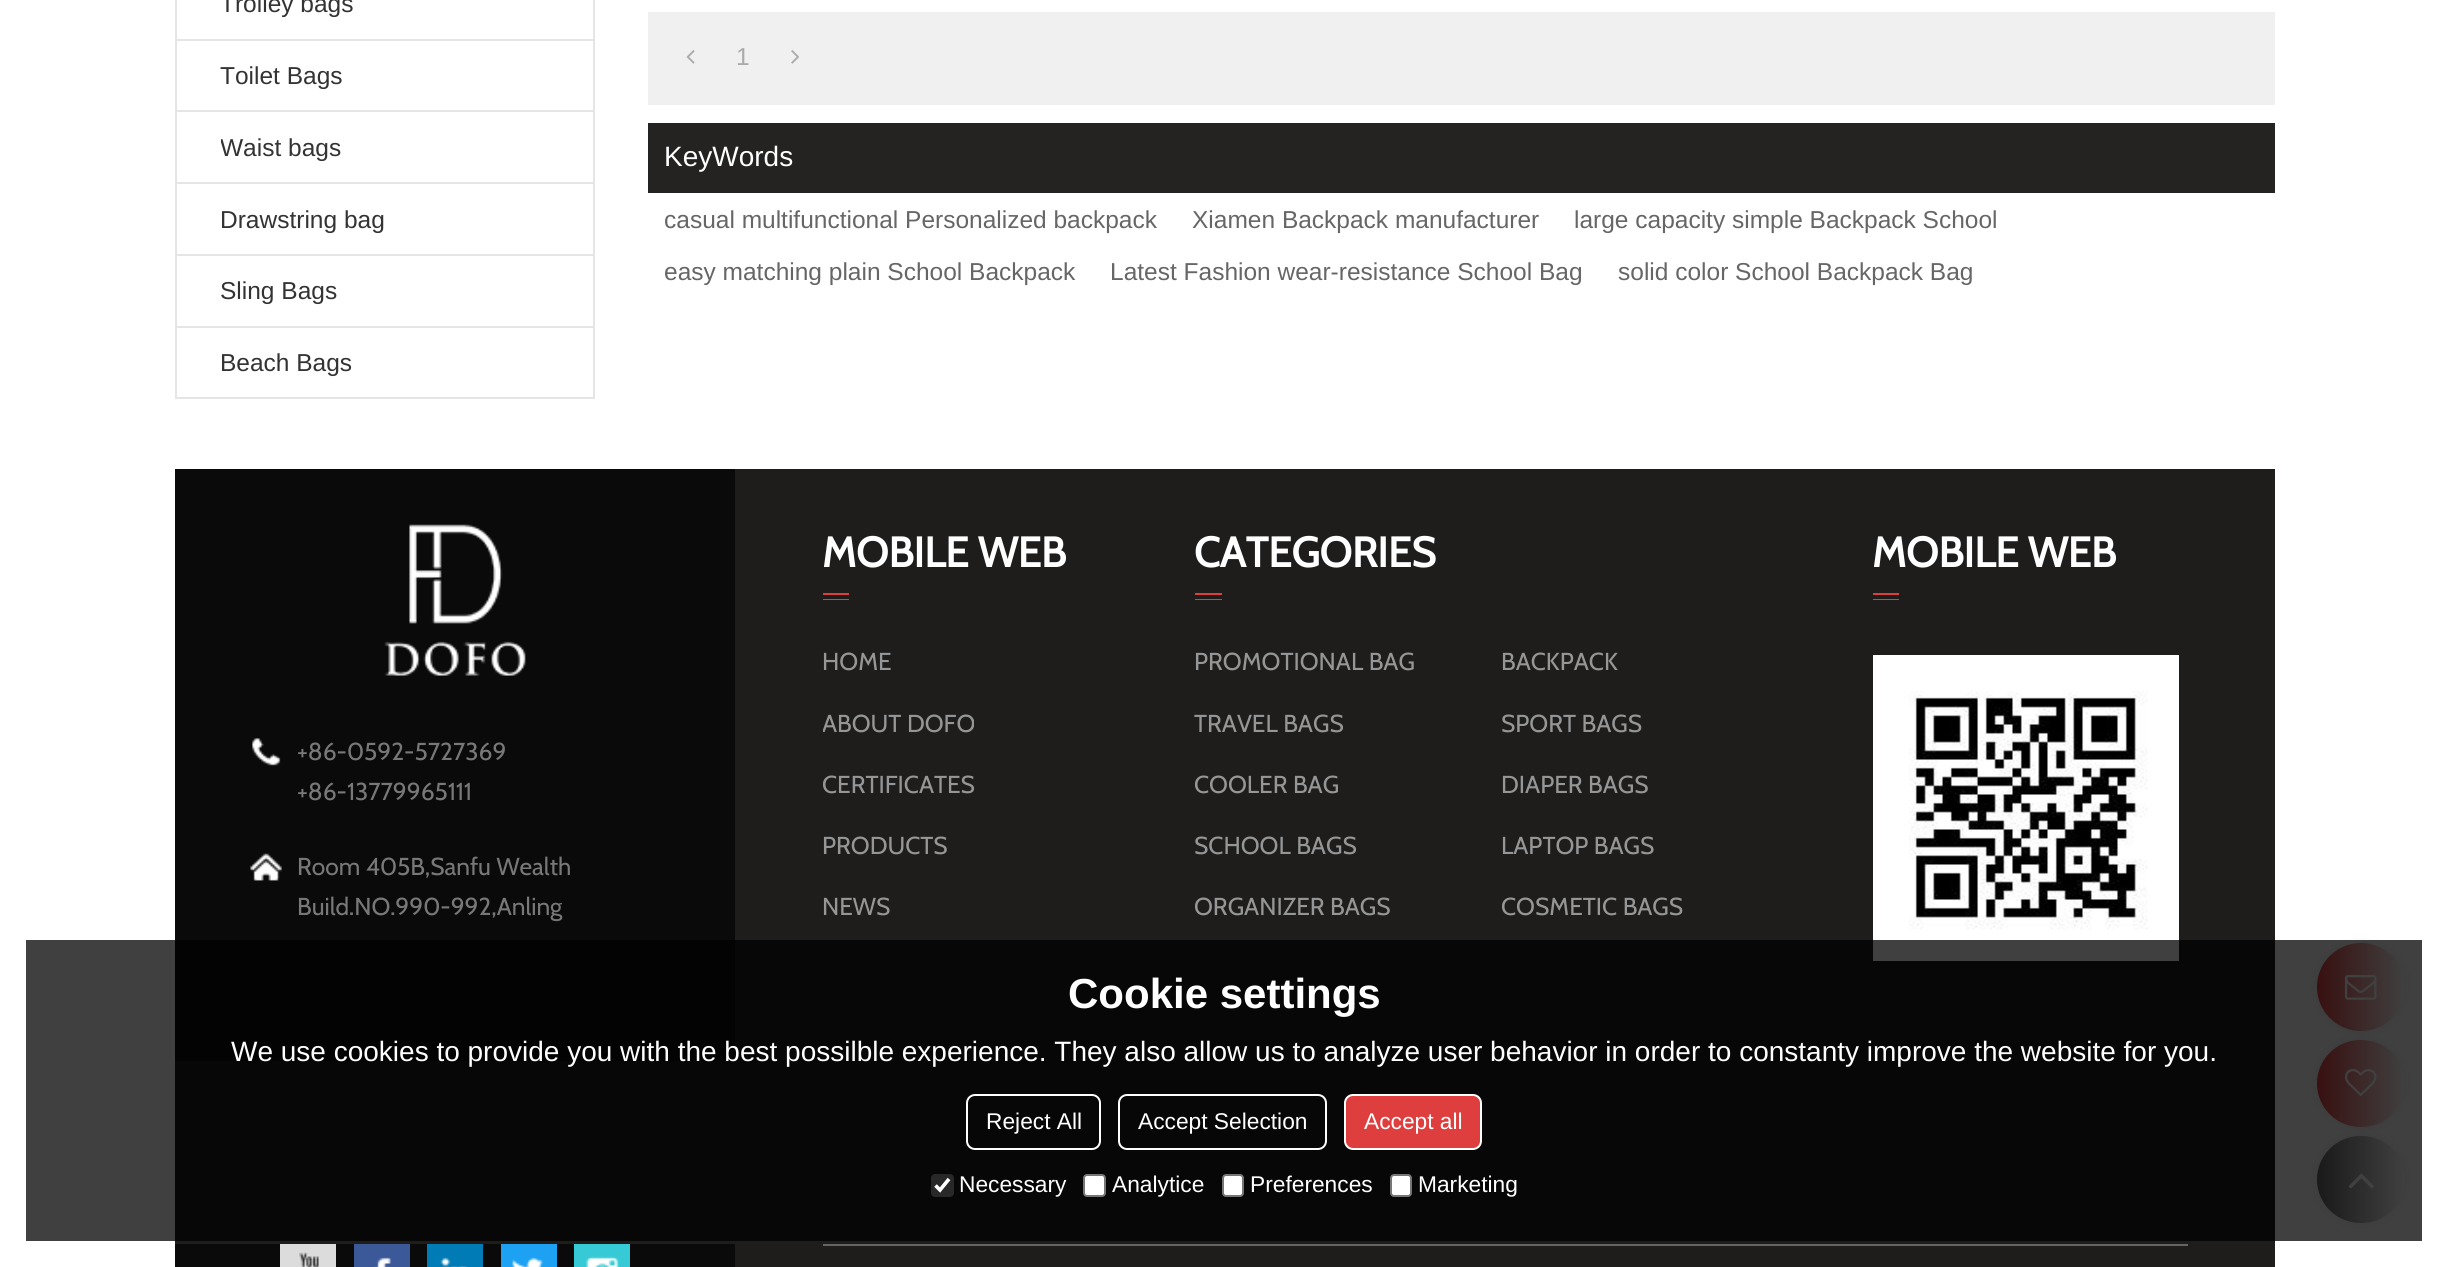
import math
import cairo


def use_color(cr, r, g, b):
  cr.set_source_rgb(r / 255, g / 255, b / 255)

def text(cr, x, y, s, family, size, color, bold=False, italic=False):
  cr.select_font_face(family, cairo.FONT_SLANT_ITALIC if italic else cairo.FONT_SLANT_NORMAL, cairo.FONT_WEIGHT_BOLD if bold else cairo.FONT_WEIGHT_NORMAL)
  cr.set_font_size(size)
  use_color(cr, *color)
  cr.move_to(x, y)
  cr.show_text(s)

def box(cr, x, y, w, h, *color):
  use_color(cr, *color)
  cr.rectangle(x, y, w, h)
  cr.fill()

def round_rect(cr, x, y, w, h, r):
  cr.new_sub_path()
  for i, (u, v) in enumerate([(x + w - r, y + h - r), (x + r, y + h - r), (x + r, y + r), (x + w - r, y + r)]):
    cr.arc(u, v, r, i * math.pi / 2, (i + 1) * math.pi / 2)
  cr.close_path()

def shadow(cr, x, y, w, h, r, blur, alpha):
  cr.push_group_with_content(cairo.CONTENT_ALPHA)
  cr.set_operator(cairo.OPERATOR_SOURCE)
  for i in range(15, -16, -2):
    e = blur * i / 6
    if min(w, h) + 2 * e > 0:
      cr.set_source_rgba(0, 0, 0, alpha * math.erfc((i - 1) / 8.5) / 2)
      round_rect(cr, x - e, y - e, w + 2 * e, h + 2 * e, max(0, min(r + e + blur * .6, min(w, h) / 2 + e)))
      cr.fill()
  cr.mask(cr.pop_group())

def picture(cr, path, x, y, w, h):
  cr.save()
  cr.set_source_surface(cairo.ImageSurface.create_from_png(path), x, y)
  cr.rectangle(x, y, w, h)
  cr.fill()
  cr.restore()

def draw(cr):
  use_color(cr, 255, 255, 255)
  cr.paint()
  box(cr, 593, 0, 2, 40, 229, 229, 229)
  box(cr, 175, 39, 420, 2, 229, 229, 229)
  box(cr, 175, 0, 2, 40, 229, 229, 229)
  box(cr, 593, 40, 2, 287, 229, 229, 229)
  box(cr, 175, 110, 420, 2, 229, 229, 229)
  box(cr, 175, 40, 2, 72, 229, 229, 229)
  box(cr, 175, 182, 420, 2, 229, 229, 229)
  box(cr, 175, 112, 2, 72, 229, 229, 229)
  box(cr, 175, 254, 420, 2, 229, 229, 229)
  box(cr, 175, 184, 2, 72, 229, 229, 229)
  box(cr, 175, 326, 420, 2, 229, 229, 229)
  box(cr, 175, 256, 2, 71, 229, 229, 229)
  box(cr, 593, 327, 2, 72, 229, 229, 229)
  box(cr, 175, 397, 420, 2, 229, 229, 229)
  box(cr, 175, 327, 2, 72, 229, 229, 229)
  box(cr, 648, 12, 1627, 93, 240, 240, 240)
  picture(cr, "img_01.png", 686, 50, 9, 14)
  picture(cr, "img_02.png", 791, 50, 8, 14)
  box(cr, 648, 123, 1627, 70, 36, 35, 33)
  box(cr, 175, 469, 2100, 775, 30, 29, 28)
  box(cr, 823, 593, 26, 2, 222, 62, 62)
  box(cr, 823, 599, 26, 1, 222, 62, 62)
  box(cr, 1195, 593, 27, 2, 222, 62, 62)
  box(cr, 1195, 599, 27, 1, 222, 62, 62)
  box(cr, 1873, 593, 26, 2, 222, 62, 62)
  box(cr, 1873, 599, 26, 1, 222, 62, 62)
  cr.rectangle(1877.5, 659.5, 297, 297)
  use_color(cr, 255, 255, 255)
  cr.set_line_width(9)
  cr.stroke()
  picture(cr, "img_03.png", 1882, 664, 288, 288)
  box(cr, 175, 469, 560, 592, 10, 10, 10)
  picture(cr, "img_04.png", 384, 524, 142, 152)
  picture(cr, "img_05.png", 252, 738, 29, 28)
  picture(cr, "img_06.png", 250, 853, 32, 28)
  box(cr, 175, 1244, 560, 23, 10, 10, 10)
  box(cr, 280, 1244, 56, 23, 220, 220, 220)
  picture(cr, "img_07.png", 299, 1252, 20, 15)
  box(cr, 354, 1244, 56, 23, 59, 89, 153)
  picture(cr, "img_08.png", 374, 1257, 17, 10)
  box(cr, 427, 1244, 56, 23, 0, 123, 182)
  picture(cr, "img_09.png", 440, 1257, 28, 10)
  box(cr, 501, 1244, 56, 23, 29, 161, 242)
  picture(cr, "img_10.png", 512, 1257, 31, 10)
  box(cr, 574, 1244, 56, 23, 54, 202, 214)
  picture(cr, "img_11.png", 586, 1256, 33, 11)
  box(cr, 735, 1244, 1540, 23, 30, 29, 28)
  box(cr, 823, 1244, 1365, 2, 100, 100, 100)
  use_color(cr, 238, 238, 238)
  shadow(cr, 2317, 943, 88, 88, 44, 4.5, 1)
  gradient = cairo.LinearGradient(2317, 987, 2405, 987)
  gradient.add_color_stop_rgba(0, 0.871, 0.243, 0.243, 1)
  gradient.add_color_stop_rgba(1, 1, 1, 1, 1)
  cr.set_source(gradient)
  cr.arc(2361, 987, 44, 0, 2 * math.pi)
  cr.fill()
  picture(cr, "img_12.png", 2345, 975, 32, 25)
  use_color(cr, 238, 238, 238)
  shadow(cr, 2317, 1040, 88, 87, 43.5, 4.5, 1)
  gradient = cairo.LinearGradient(2317, 1083, 2405, 1083)
  gradient.add_color_stop_rgba(0, 0.871, 0.243, 0.243, 1)
  gradient.add_color_stop_rgba(1, 1, 1, 1, 1)
  cr.set_source(gradient)
  round_rect(cr, 2317, 1040, 88, 87, 43.5)
  cr.fill()
  picture(cr, "img_13.png", 2345, 1069, 32, 27)
  use_color(cr, 238, 238, 238)
  shadow(cr, 2317, 1136, 88, 87, 43.5, 4.5, 1)
  gradient = cairo.LinearGradient(2317, 1180, 2405, 1180)
  gradient.add_color_stop_rgba(0, 0.4, 0.4, 0.4, 1)
  gradient.add_color_stop_rgba(1, 1, 1, 1, 1)
  cr.set_source(gradient)
  round_rect(cr, 2317, 1136, 88, 87, 43.5)
  cr.fill()
  picture(cr, "img_14.png", 2348, 1173, 26, 16)
  cr.set_source_rgba(0, 0, 0, 0.75)
  cr.rectangle(26, 940, 2396, 301)
  cr.fill()
  round_rect(cr, 967, 1095, 133, 54, 8)
  use_color(cr, 255, 255, 255)
  cr.set_line_width(2)
  cr.stroke()
  round_rect(cr, 1119, 1095, 207, 54, 8)
  cr.stroke()
  use_color(cr, 222, 62, 62)
  round_rect(cr, 1345, 1095, 136, 54, 8)
  cr.fill_preserve()
  use_color(cr, 255, 255, 255)
  cr.stroke()
  use_color(cr, 41, 40, 40)
  round_rect(cr, 931, 1174, 23, 23, 4)
  cr.fill()
  cr.new_path()
  cr.move_to(935.5, 1185.5)
  cr.line_to(940, 1190)
  cr.line_to(949, 1179)
  use_color(cr, 255, 255, 255)
  cr.set_line_width(3.6)
  cr.stroke()
  round_rect(cr, 1084, 1175, 21, 21, 3)
  cr.fill_preserve()
  use_color(cr, 118, 118, 118)
  cr.set_line_width(2)
  cr.stroke()
  use_color(cr, 255, 255, 255)
  round_rect(cr, 1223, 1175, 20, 21, 3)
  cr.fill_preserve()
  use_color(cr, 118, 118, 118)
  cr.stroke()
  use_color(cr, 255, 255, 255)
  round_rect(cr, 1391, 1175, 20, 21, 3)
  cr.fill_preserve()
  use_color(cr, 118, 118, 118)
  cr.stroke()
  text(cr, 220, 12, "Trolley bags", "Liberation Sans", 24.5, (51, 51, 51))
  text(cr, 220, 84, "Toilet Bags", "Liberation Sans", 24.5, (51, 51, 51))
  cr.save()
  cr.rectangle(221, 112, 329, 70)
  cr.clip()
  text(cr, 220, 156, "Waist bags", "Liberation Sans", 24.5, (51, 51, 51))
  cr.restore()
  text(cr, 220, 228, "Drawstring bag", "Liberation Sans", 24.5, (51, 51, 51))
  text(cr, 220, 299, "Sling Bags", "Liberation Sans", 24.5, (51, 51, 51))
  text(cr, 220, 371, "Beach Bags", "Liberation Sans", 24.5, (51, 51, 51))
  text(cr, 736, 65, "1", "Liberation Sans", 24.5, (170, 170, 170))
  text(cr, 664, 166, "KeyWords", "Liberation Sans", 28, (255, 255, 255))
  text(cr, 664, 228, "casual multifunctional Personalized backpack", "Liberation Sans", 24.5, (102, 102, 102))
  text(cr, 1192, 228, "Xiamen Backpack manufacturer", "Liberation Sans", 24.5, (102, 102, 102))
  text(cr, 1574, 228, "large capacity simple Backpack School", "Liberation Sans", 24.5, (102, 102, 102))
  text(cr, 664, 280, "easy matching plain School Backpack", "Liberation Sans", 24.5, (102, 102, 102))
  text(cr, 1110, 280, "Latest Fashion wear-resistance School Bag", "Liberation Sans", 24.5, (102, 102, 102))
  text(cr, 1618, 280, "solid color School Backpack Bag", "Liberation Sans", 24.5, (102, 102, 102))
  text(cr, 822, 567, "MOBILE WEB", "Cabin", 42, (255, 255, 255), bold=True)
  text(cr, 822, 670, "HOME", "Cabin", 24.5, (150, 150, 150))
  cr.save()
  cr.rectangle(823, 632, 315, 429)
  cr.clip()
  text(cr, 822, 732, "ABOUT DOFO", "Cabin", 24.5, (150, 150, 150))
  text(cr, 822, 793, "CERTIFICATES", "Cabin", 24.5, (150, 150, 150))
  cr.restore()
  text(cr, 822, 854, "PRODUCTS", "Cabin", 24.5, (150, 150, 150))
  text(cr, 822, 915, "NEWS", "Cabin", 24.5, (150, 150, 150))
  text(cr, 1194, 567, "CATEGORIES", "Cabin", 42, (255, 255, 255), bold=True)
  text(cr, 1194, 670, "PROMOTIONAL BAG", "Cabin", 24.5, (150, 150, 150))
  text(cr, 1501, 670, "BACKPACK", "Cabin", 24.5, (150, 150, 150))
  text(cr, 1194, 732, "TRAVEL BAGS", "Cabin", 24.5, (150, 150, 150))
  text(cr, 1501, 732, "SPORT BAGS", "Cabin", 24.5, (150, 150, 150))
  text(cr, 1194, 793, "COOLER BAG", "Cabin", 24.5, (150, 150, 150))
  text(cr, 1501, 793, "DIAPER BAGS", "Cabin", 24.5, (150, 150, 150))
  text(cr, 1194, 854, "SCHOOL BAGS", "Cabin", 24.5, (150, 150, 150))
  text(cr, 1501, 854, "LAPTOP BAGS", "Cabin", 24.5, (150, 150, 150))
  text(cr, 1194, 915, "ORGANIZER BAGS", "Cabin", 24.5, (150, 150, 150))
  cr.save()
  cr.rectangle(1502, 877, 253, 61)
  cr.clip()
  text(cr, 1501, 915, "COSMETIC BAGS", "Cabin", 24.5, (150, 150, 150))
  cr.restore()
  text(cr, 1872, 567, "MOBILE WEB", "Cabin", 42, (255, 255, 255), bold=True)
  text(cr, 297, 760, "+86-0592-5727369", "Cabin", 24.5, (120, 120, 120))
  text(cr, 297, 800, "+86-13779965111", "Cabin", 24.5, (120, 120, 120))
  text(cr, 297, 875, "Room 405B,Sanfu Wealth", "Cabin", 24.5, (120, 120, 120))
  text(cr, 297, 915, "Build.NO.990-992,Anling", "Cabin", 24.5, (120, 120, 120))
  text(cr, 1068, 1008, "Cookie settings", "Liberation Sans", 42, (255, 255, 255), bold=True)
  text(cr, 231, 1061, "We use cookies to provide you with the best possilble experience. They also allow us to analyze user behavior in order to constanty improve the website for you.", "Liberation Sans", 28, (255, 255, 255))
  text(cr, 986, 1129, "Reject All", "Liberation Sans", 22.75, (255, 255, 255))
  text(cr, 1138, 1129, "Accept Selection", "Liberation Sans", 22.75, (255, 255, 255))
  text(cr, 1364, 1129, "Accept all", "Liberation Sans", 22.75, (255, 255, 255))
  text(cr, 959, 1192, "Necessary", "Liberation Sans", 22.75, (255, 255, 255))
  text(cr, 1112, 1192, "Analytice", "Liberation Sans", 22.75, (255, 255, 255))
  text(cr, 1250, 1192, "Preferences", "Liberation Sans", 22.75, (255, 255, 255))
  text(cr, 1418, 1192, "Marketing", "Liberation Sans", 22.75, (255, 255, 255))


surface = cairo.ImageSurface(cairo.FORMAT_RGB24, 2447, 1267)
cr = cairo.Context(surface)
options = cairo.FontOptions()
options.set_hint_metrics(cairo.HINT_METRICS_OFF)
options.set_hint_style(cairo.HINT_STYLE_NONE)
cr.set_font_options(options)
cr.set_miter_limit(4)
draw(cr)
surface.write_to_png("out.png")
